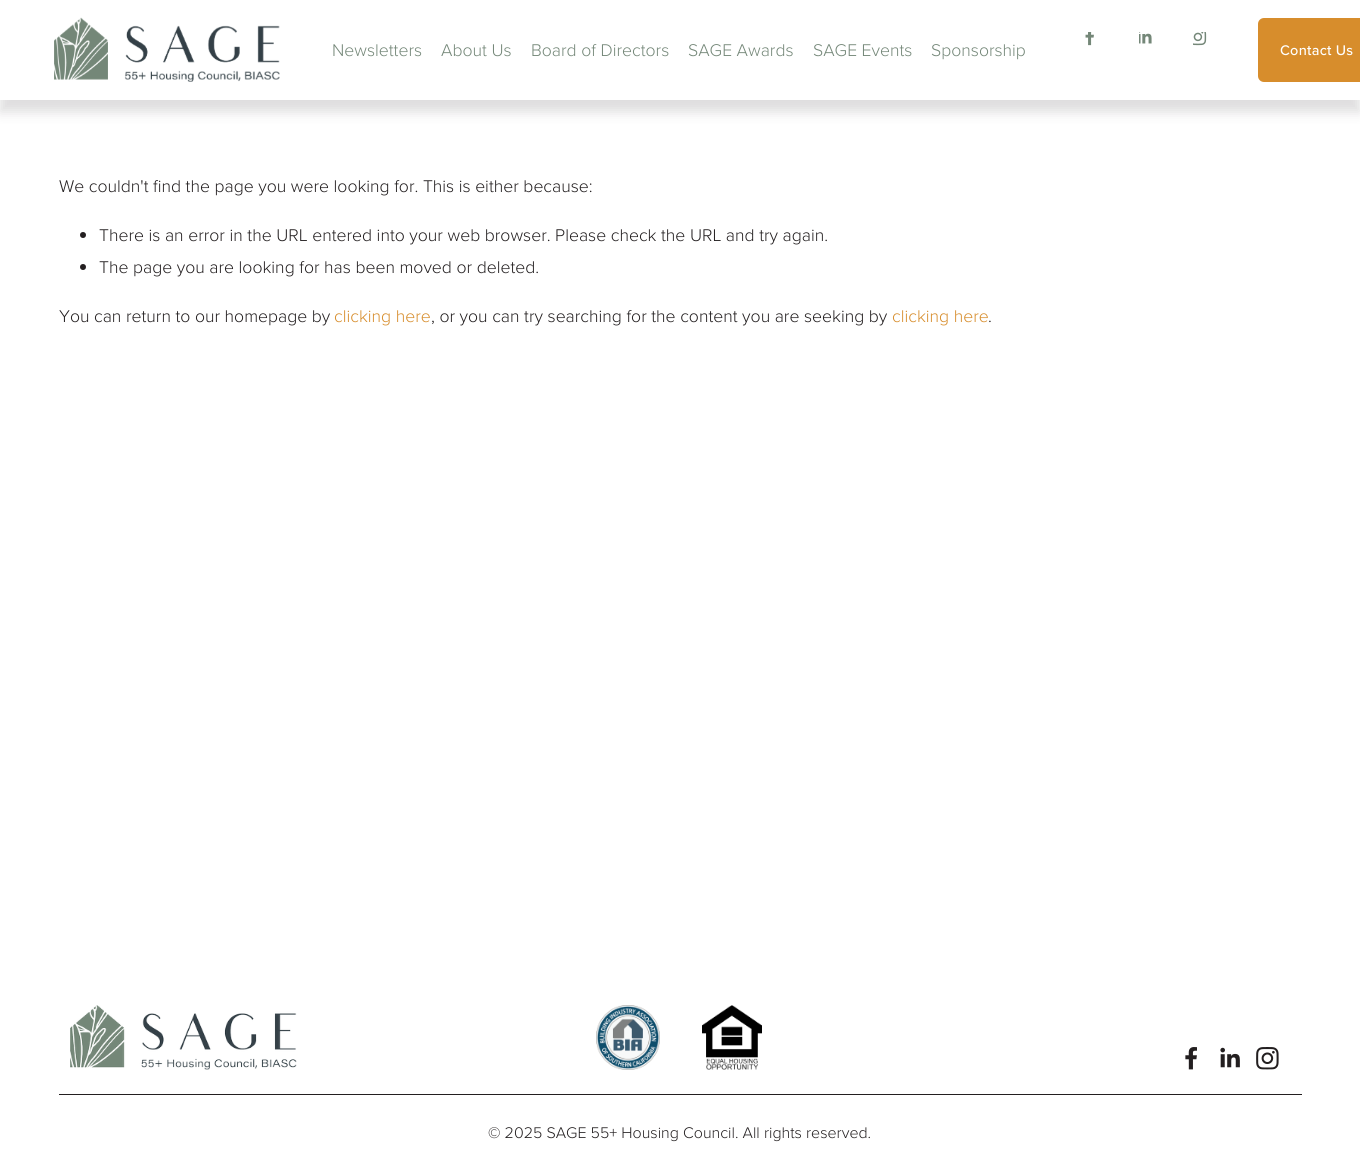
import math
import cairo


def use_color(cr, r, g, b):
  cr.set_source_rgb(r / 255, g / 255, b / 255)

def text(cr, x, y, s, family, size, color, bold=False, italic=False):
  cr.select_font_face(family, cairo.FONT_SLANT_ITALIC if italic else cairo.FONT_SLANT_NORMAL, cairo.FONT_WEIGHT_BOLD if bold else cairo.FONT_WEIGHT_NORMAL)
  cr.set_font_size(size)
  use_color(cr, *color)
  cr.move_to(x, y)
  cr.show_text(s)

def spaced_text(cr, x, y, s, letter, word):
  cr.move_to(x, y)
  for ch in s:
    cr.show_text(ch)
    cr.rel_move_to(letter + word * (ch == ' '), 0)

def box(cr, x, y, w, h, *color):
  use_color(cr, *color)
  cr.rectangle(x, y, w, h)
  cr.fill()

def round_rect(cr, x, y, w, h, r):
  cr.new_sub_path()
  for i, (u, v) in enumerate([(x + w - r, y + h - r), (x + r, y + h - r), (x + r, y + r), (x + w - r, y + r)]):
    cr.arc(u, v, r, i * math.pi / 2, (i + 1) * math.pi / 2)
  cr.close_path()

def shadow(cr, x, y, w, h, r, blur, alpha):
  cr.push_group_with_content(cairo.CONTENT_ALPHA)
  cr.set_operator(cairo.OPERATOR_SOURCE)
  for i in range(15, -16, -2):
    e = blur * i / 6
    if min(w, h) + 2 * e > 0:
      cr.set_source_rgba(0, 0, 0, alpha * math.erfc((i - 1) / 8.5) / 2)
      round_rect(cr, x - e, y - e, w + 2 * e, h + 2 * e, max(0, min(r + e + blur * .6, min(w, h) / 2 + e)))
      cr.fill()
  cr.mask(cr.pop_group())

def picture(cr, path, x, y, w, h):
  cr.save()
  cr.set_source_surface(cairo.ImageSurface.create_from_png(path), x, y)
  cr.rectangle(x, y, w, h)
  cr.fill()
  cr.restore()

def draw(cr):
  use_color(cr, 255, 255, 255)
  cr.paint()
  cr.save()
  cr.rectangle(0, 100, 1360, 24)
  cr.clip()
  use_color(cr, 222, 221, 222)
  shadow(cr, 0, 12, 1360, 100, 0, 6, 1)
  cr.restore()
  picture(cr, "img_01.png", 54, 17, 226, 65)
  picture(cr, "img_02.png", 1085, 32, 9, 14)
  picture(cr, "img_03.png", 1139, 32, 13, 12)
  picture(cr, "img_04.png", 1193, 32, 14, 14)
  use_color(cr, 215, 141, 44)
  round_rect(cr, 1258, 18, 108, 64, 6)
  cr.fill()
  use_color(cr, 35, 31, 32)
  cr.arc(83, 235, 3, 0, 2 * math.pi)
  cr.fill()
  cr.arc(83, 267, 3, 0, 2 * math.pi)
  cr.fill()
  picture(cr, "img_05.png", 70, 1005, 227, 65)
  picture(cr, "img_06.png", 596, 1005, 64, 65)
  picture(cr, "img_07.png", 702, 1005, 60, 65)
  picture(cr, "img_08.png", 1185, 1047, 12, 23)
  picture(cr, "img_09.png", 1220, 1047, 20, 21)
  picture(cr, "img_10.png", 1256, 1047, 23, 23)
  box(cr, 59, 1094, 1243, 1, 35, 31, 32)
  text(cr, 332, 56, "Newsletters", "Proxima Nova Light", 17.6, (116, 135, 120))
  text(cr, 441, 56, "About Us", "Proxima Nova Light", 17.6, (116, 135, 120))
  text(cr, 531, 56, "Board of Directors", "Proxima Nova Light", 17.6, (116, 135, 120))
  text(cr, 688, 56, "SAGE Awards", "Proxima Nova Light", 17.6, (116, 135, 120))
  text(cr, 813, 56, "SAGE Events", "Proxima Nova Light", 17.6, (116, 135, 120))
  text(cr, 931, 56, "Sponsorship", "Proxima Nova Light", 17.6, (116, 135, 120))
  cr.select_font_face("Proxima Nova Medium")
  cr.set_font_size(14.5)
  use_color(cr, 255, 255, 255)
  spaced_text(cr, 1280, 55, "Contact Us", 0.25, 0)
  text(cr, 59, 192, "We couldn't find the page you were looking for. This is either because:", "Proxima Nova Light", 17.6, (35, 31, 32))
  text(cr, 99, 241, "There is an error in the URL entered into your web browser. Please check the URL and try again.", "Proxima Nova Light", 17.6, (35, 31, 32))
  text(cr, 99, 273, "The page you are looking for has been moved or deleted.", "Proxima Nova Light", 17.6, (35, 31, 32))
  text(cr, 59, 322, "You can return to our homepage by", "Proxima Nova Light", 17.6, (35, 31, 32))
  text(cr, 334, 322, "clicking here", "Proxima Nova Light", 17.6, (215, 141, 44))
  text(cr, 431, 322, ", or you can try searching for the content you are seeking by", "Proxima Nova Light", 17.6, (35, 31, 32))
  text(cr, 892, 322, "clicking here", "Proxima Nova Light", 17.6, (215, 141, 44))
  text(cr, 988, 322, ".", "Proxima Nova Light", 17.6, (35, 31, 32))
  text(cr, 488, 1138, "© 2025 SAGE 55+ Housing Council. All rights reserved.", "Proxima Nova Light", 16, (35, 31, 32))


surface = cairo.ImageSurface(cairo.FORMAT_RGB24, 1360, 1169)
cr = cairo.Context(surface)
options = cairo.FontOptions()
options.set_hint_metrics(cairo.HINT_METRICS_OFF)
options.set_hint_style(cairo.HINT_STYLE_NONE)
cr.set_font_options(options)
cr.set_miter_limit(4)
draw(cr)
surface.write_to_png("out.png")
